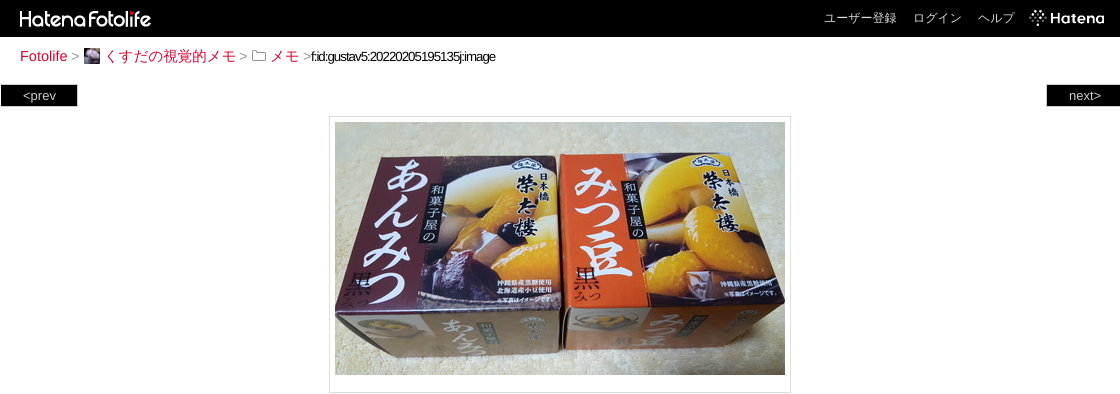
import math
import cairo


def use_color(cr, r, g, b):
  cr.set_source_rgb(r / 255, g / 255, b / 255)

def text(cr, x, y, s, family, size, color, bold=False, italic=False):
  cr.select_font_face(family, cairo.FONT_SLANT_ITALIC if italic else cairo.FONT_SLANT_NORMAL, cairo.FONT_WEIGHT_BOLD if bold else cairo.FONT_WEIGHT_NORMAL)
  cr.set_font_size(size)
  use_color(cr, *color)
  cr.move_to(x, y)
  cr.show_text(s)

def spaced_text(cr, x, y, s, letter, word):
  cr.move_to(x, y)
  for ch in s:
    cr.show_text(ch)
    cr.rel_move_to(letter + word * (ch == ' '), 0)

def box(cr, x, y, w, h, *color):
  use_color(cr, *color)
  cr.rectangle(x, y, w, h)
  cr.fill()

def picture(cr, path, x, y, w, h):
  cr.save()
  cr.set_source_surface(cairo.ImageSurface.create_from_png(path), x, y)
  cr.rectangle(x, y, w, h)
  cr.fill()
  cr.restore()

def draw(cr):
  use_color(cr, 255, 255, 255)
  cr.paint()
  box(cr, 0, 0, 1120, 37, 0, 0, 0)
  picture(cr, "img_01.png", 20, 11, 66, 16)
  picture(cr, "img_02.png", 89, 11, 62, 16)
  picture(cr, "img_03.png", 1029, 10, 75, 16)
  picture(cr, "img_04.png", 84, 48, 16, 16)
  picture(cr, "img_05.png", 252, 50, 14, 11)
  box(cr, 1, 85, 76, 21, 0, 0, 0)
  box(cr, 1, 84, 77, 1, 204, 204, 204)
  box(cr, 77, 84, 1, 23, 204, 204, 204)
  box(cr, 1, 106, 77, 1, 204, 204, 204)
  box(cr, 1047, 85, 73, 21, 0, 0, 0)
  box(cr, 1046, 84, 74, 1, 204, 204, 204)
  box(cr, 1046, 106, 74, 1, 204, 204, 204)
  box(cr, 1046, 84, 1, 23, 204, 204, 204)
  cr.rectangle(329.5, 116.5, 461, 276)
  use_color(cr, 222, 222, 222)
  cr.set_line_width(1)
  cr.stroke()
  picture(cr, "img_06.png", 335, 122, 450, 253)
  text(cr, 824, 22, "ユーザー登録", "WenQuanYi Zen Hei Medium", 12, (221, 221, 221))
  text(cr, 913, 22, "ログイン", "WenQuanYi Zen Hei Medium", 12, (221, 221, 221))
  text(cr, 978, 22, "ヘルプ", "WenQuanYi Zen Hei Medium", 12, (221, 221, 221))
  text(cr, 20, 61, "Fotolife", "Liberation Sans", 14.5, (222, 0, 47))
  text(cr, 71, 61, ">", "Liberation Sans", 14.5, (153, 153, 153))
  text(cr, 104, 61, "くすだの視覚的メモ", "WenQuanYi Zen Hei Medium", 14.5, (222, 0, 47))
  text(cr, 239, 61, ">", "Liberation Sans", 14.5, (153, 153, 153))
  text(cr, 270, 61, "メモ", "WenQuanYi Zen Hei Medium", 14.5, (222, 0, 47))
  text(cr, 303, 61, ">", "Liberation Sans", 14.5, (153, 153, 153))
  cr.set_font_size(13.3)
  use_color(cr, 0, 0, 0)
  spaced_text(cr, 311, 61, "f:id:gustav5:20220205195135j:image", -1, 0)
  text(cr, 23, 100, "<prev", "Liberation Sans", 13, (204, 204, 204))
  text(cr, 1069, 100, "next>", "Liberation Sans", 13, (204, 204, 204))


surface = cairo.ImageSurface(cairo.FORMAT_RGB24, 1120, 394)
cr = cairo.Context(surface)
options = cairo.FontOptions()
options.set_hint_metrics(cairo.HINT_METRICS_OFF)
options.set_hint_style(cairo.HINT_STYLE_NONE)
cr.set_font_options(options)
cr.set_miter_limit(4)
draw(cr)
surface.write_to_png("out.png")
